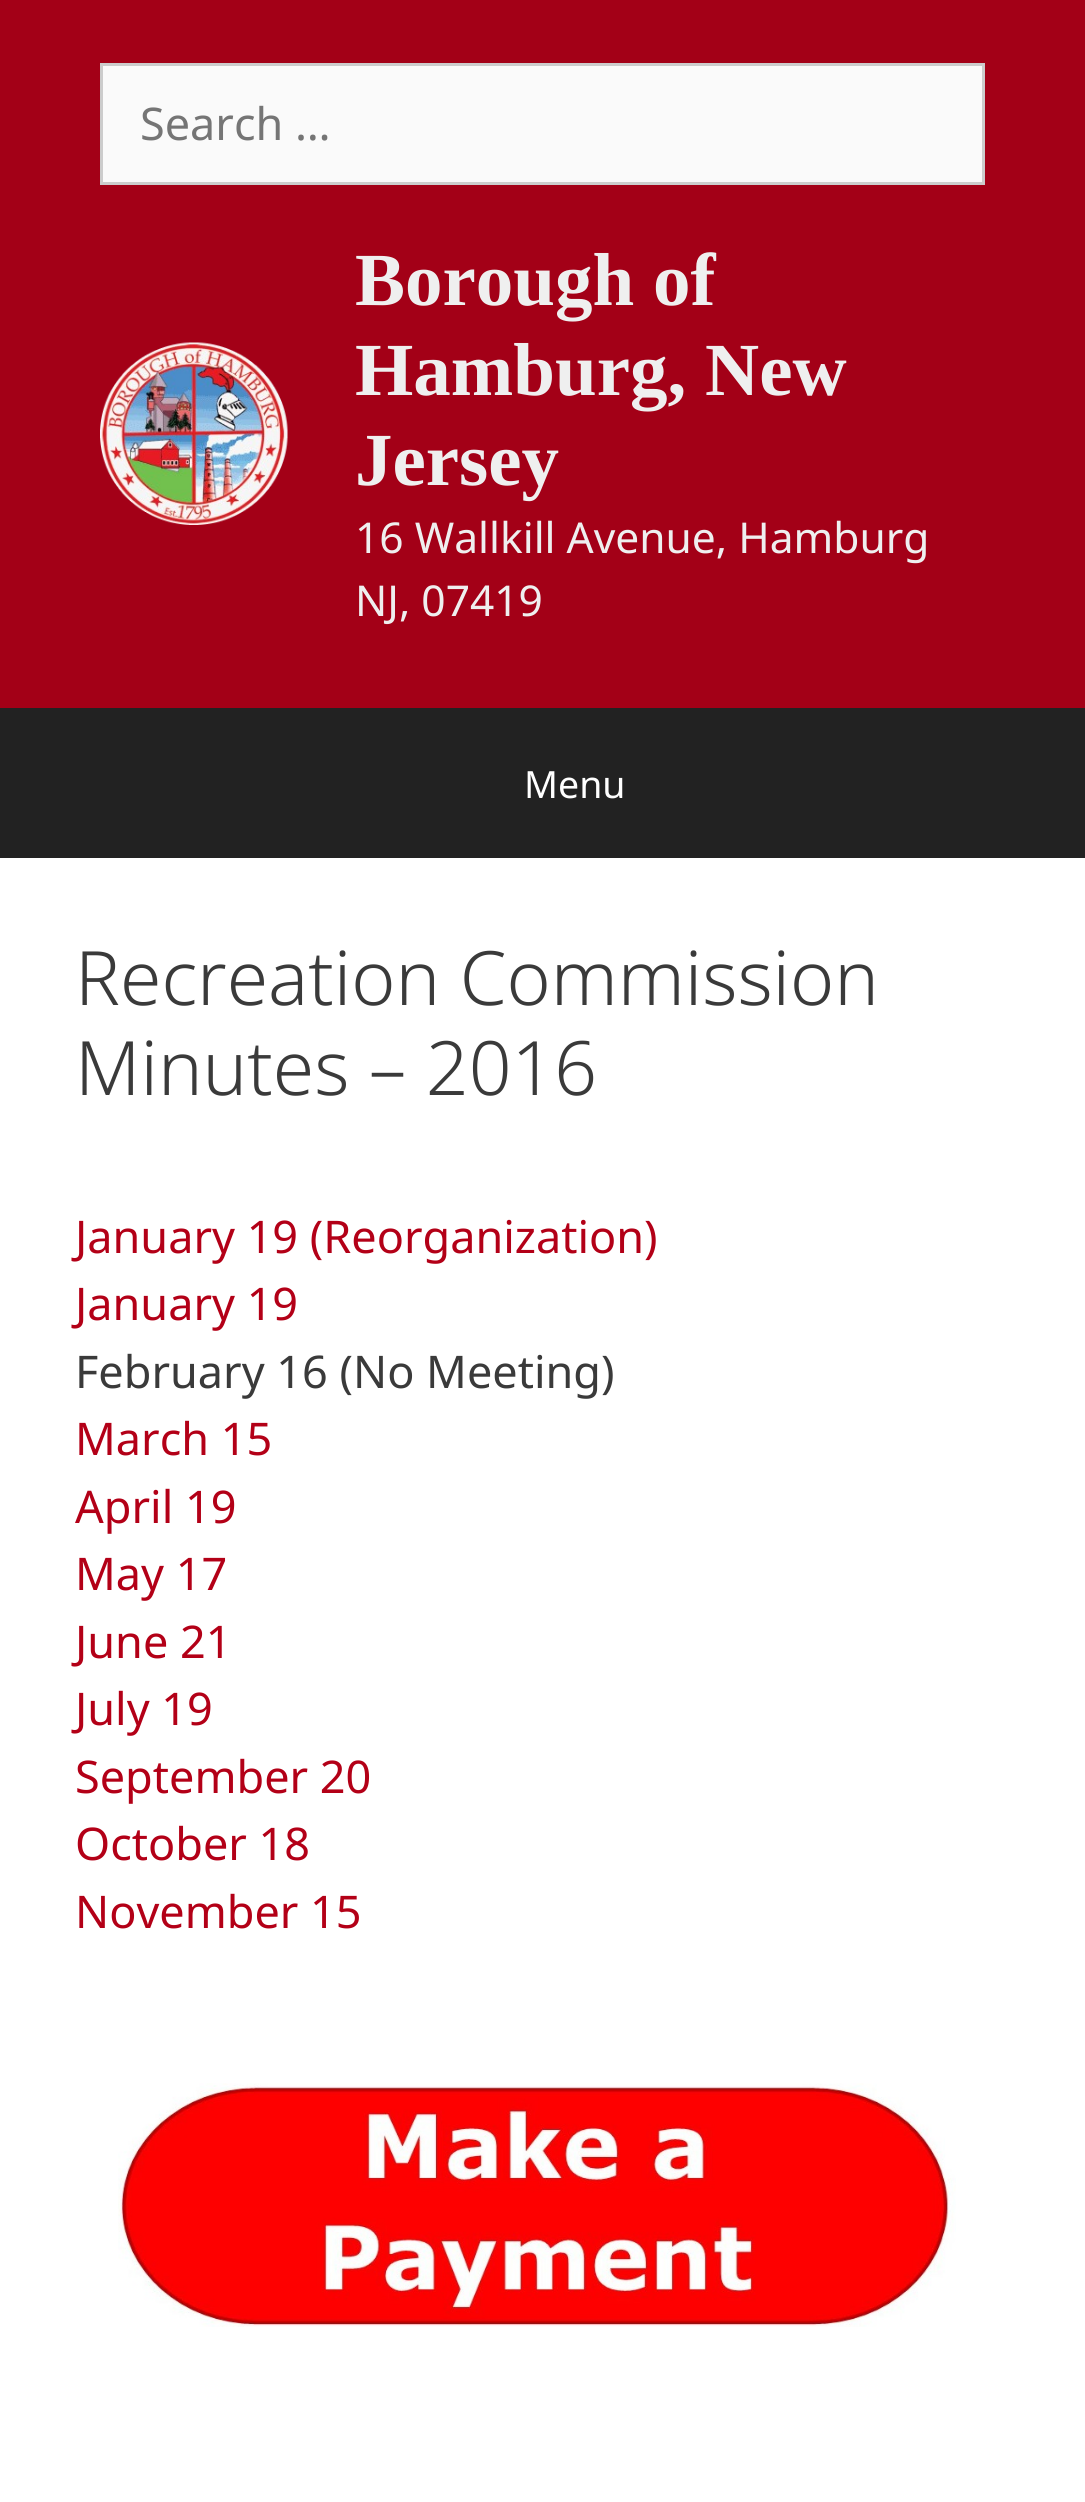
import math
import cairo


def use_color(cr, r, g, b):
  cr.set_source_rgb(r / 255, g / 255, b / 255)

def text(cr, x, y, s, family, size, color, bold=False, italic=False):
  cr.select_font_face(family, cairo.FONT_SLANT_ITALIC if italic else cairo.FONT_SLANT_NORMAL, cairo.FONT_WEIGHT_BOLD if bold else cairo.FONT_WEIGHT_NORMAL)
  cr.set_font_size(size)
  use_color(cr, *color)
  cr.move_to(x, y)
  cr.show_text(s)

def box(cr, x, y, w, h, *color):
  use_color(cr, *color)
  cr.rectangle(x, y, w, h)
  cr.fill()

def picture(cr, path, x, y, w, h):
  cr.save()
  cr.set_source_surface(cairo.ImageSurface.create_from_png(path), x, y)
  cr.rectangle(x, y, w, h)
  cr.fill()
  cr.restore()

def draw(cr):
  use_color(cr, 34, 34, 34)
  cr.paint()
  box(cr, 0, 0, 1085, 708, 163, 0, 23)
  use_color(cr, 250, 250, 250)
  cr.rectangle(101.5, 64.5, 882, 119)
  cr.fill_preserve()
  use_color(cr, 204, 204, 204)
  cr.set_line_width(3)
  cr.stroke()
  picture(cr, "img_01.png", 100, 342, 188, 183)
  box(cr, 0, 858, 1085, 1644, 255, 255, 255)
  picture(cr, "img_02.png", 118, 2083, 838, 244)
  text(cr, 140, 140, "Search …", "Noto Sans", 45, (117, 117, 117))
  text(cr, 355, 305, "Borough of", "Liberation Serif", 75, (239, 239, 239), bold=True)
  text(cr, 355, 395, "Hamburg, New", "Liberation Serif", 75, (239, 239, 239), bold=True)
  text(cr, 355, 485, "Jersey", "Liberation Serif", 75, (239, 239, 239), bold=True)
  text(cr, 355, 553, "16 Wallkill Avenue, Hamburg", "Noto Sans", 42.5, (239, 239, 239))
  text(cr, 355, 616, "NJ, 07419", "Noto Sans", 42.5, (239, 239, 239))
  text(cr, 524, 798, "Menu", "Noto Sans", 37.5, (255, 255, 255))
  text(cr, 75, 1005, "Recreation Commission", "Noto Sans Light", 75, (58, 58, 58))
  text(cr, 75, 1095, "Minutes – 2016", "Noto Sans Light", 75, (58, 58, 58))
  text(cr, 75, 1253, "January 19 (Reorganization)", "Noto Sans", 45, (179, 0, 23))
  text(cr, 75, 1320, "January 19", "Noto Sans", 45, (179, 0, 23))
  text(cr, 75, 1388, "February 16 (No Meeting)", "Noto Sans", 45, (58, 58, 58))
  text(cr, 75, 1455, "March 15", "Noto Sans", 45, (179, 0, 23))
  text(cr, 75, 1523, "April 19", "Noto Sans", 45, (179, 0, 23))
  text(cr, 75, 1590, "May 17", "Noto Sans", 45, (179, 0, 23))
  text(cr, 75, 1658, "June 21", "Noto Sans", 45, (179, 0, 23))
  text(cr, 75, 1725, "July 19", "Noto Sans", 45, (179, 0, 23))
  text(cr, 75, 1793, "September 20", "Noto Sans", 45, (179, 0, 23))
  text(cr, 75, 1860, "October 18", "Noto Sans", 45, (179, 0, 23))
  text(cr, 75, 1928, "November 15", "Noto Sans", 45, (179, 0, 23))


surface = cairo.ImageSurface(cairo.FORMAT_RGB24, 1085, 2502)
cr = cairo.Context(surface)
options = cairo.FontOptions()
options.set_hint_metrics(cairo.HINT_METRICS_OFF)
options.set_hint_style(cairo.HINT_STYLE_NONE)
cr.set_font_options(options)
cr.set_miter_limit(4)
draw(cr)
surface.write_to_png("out.png")
